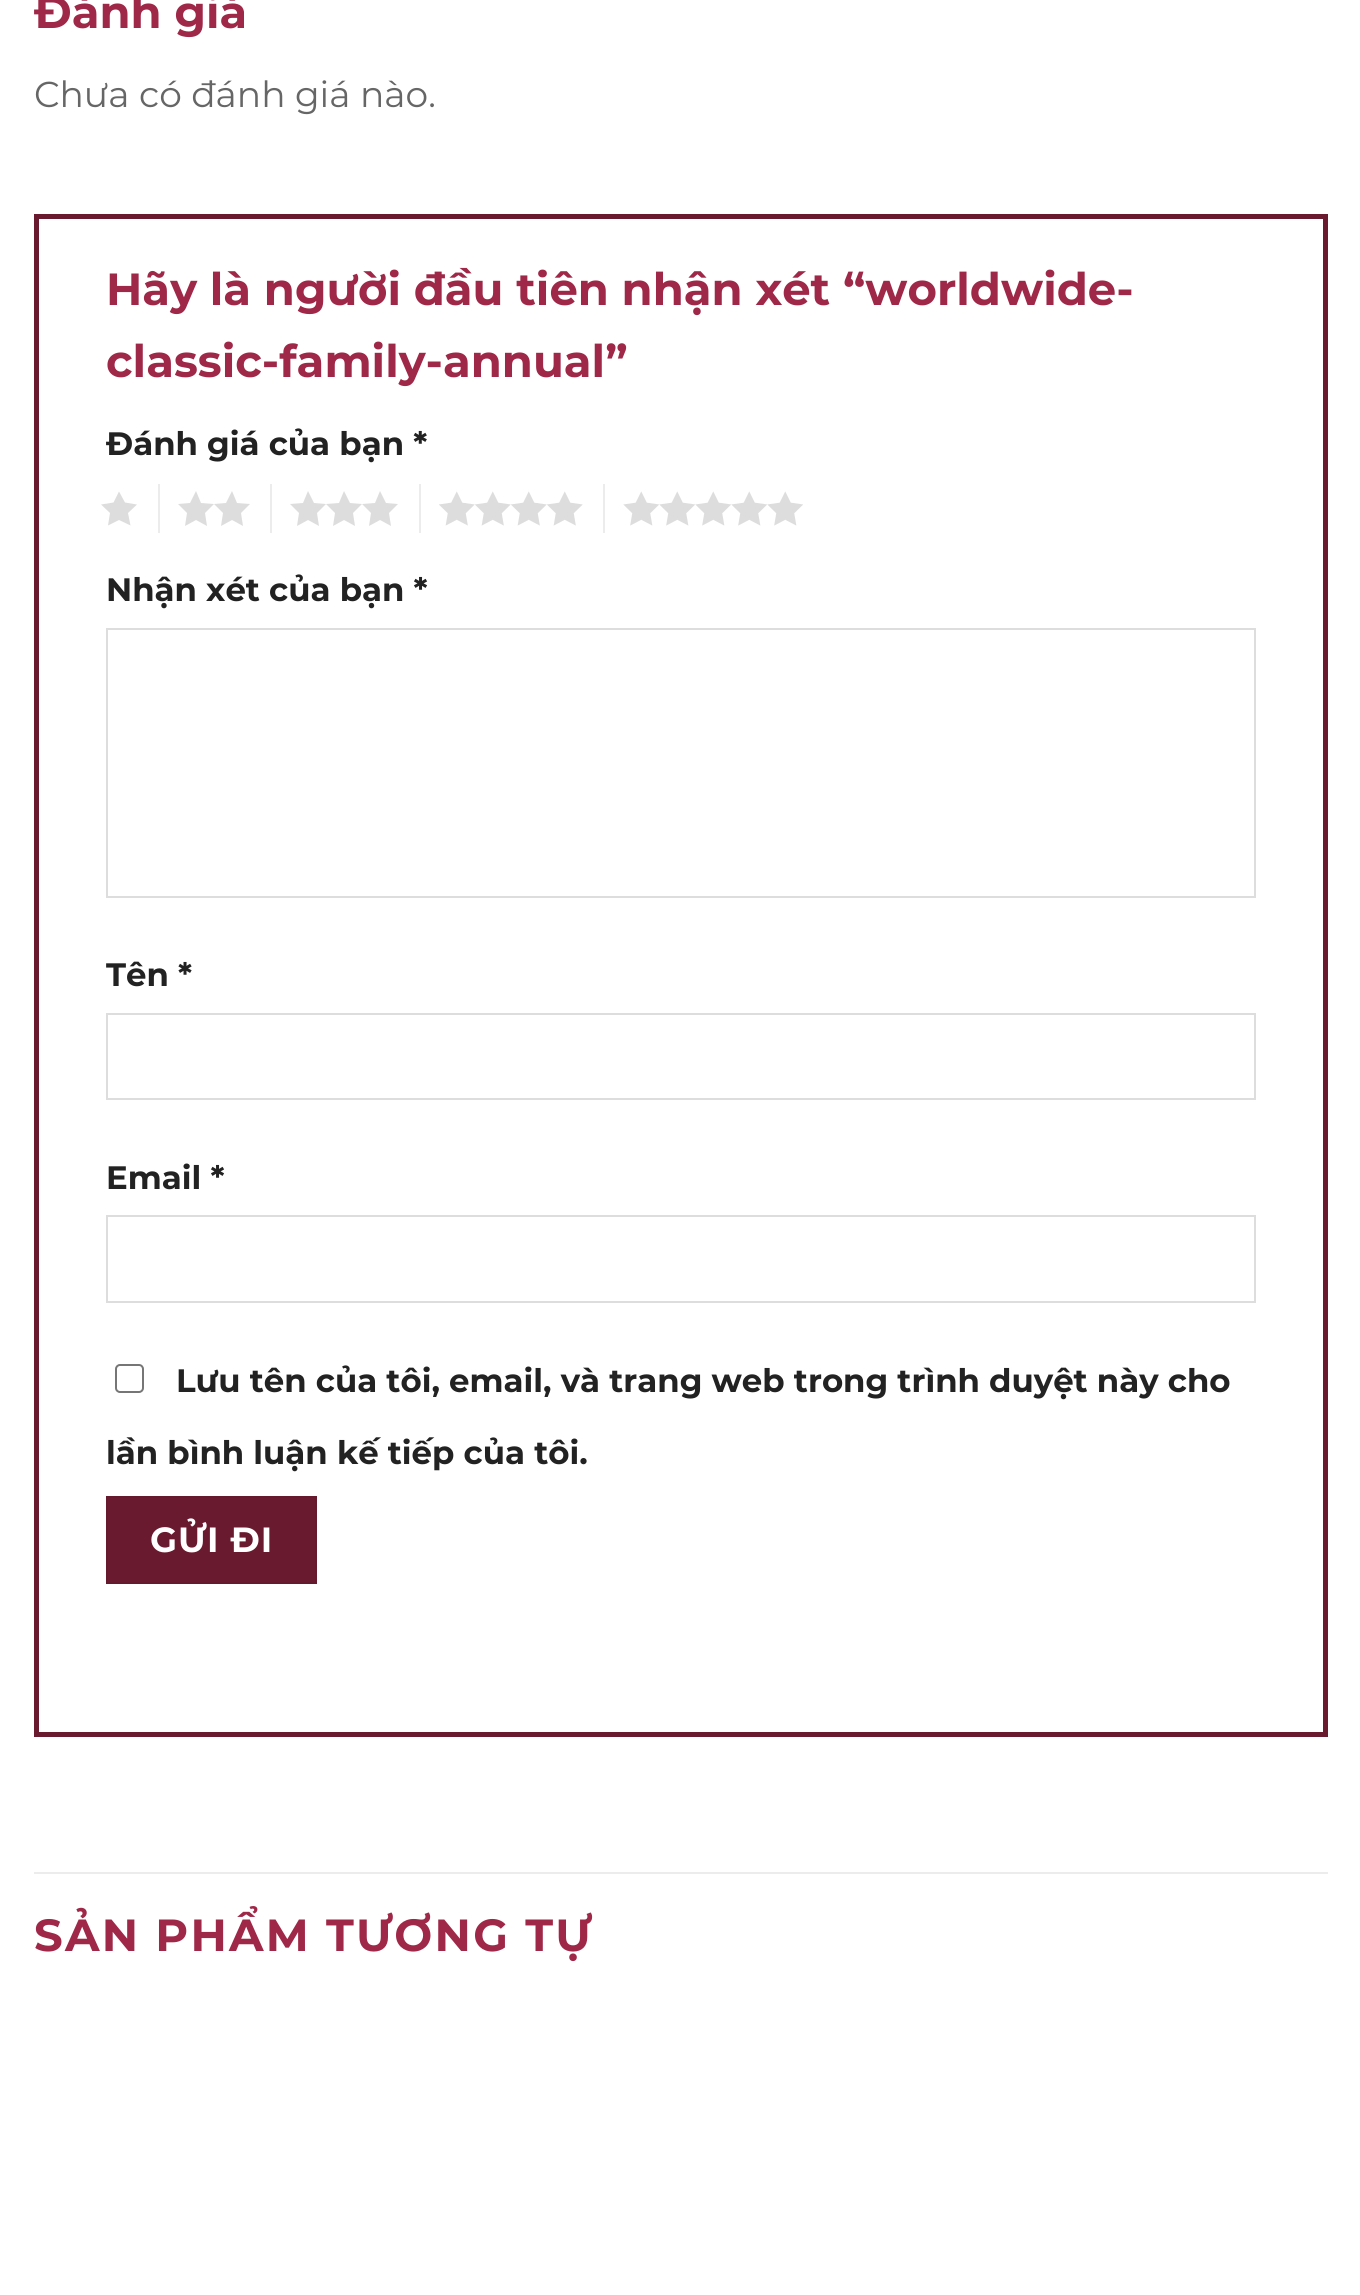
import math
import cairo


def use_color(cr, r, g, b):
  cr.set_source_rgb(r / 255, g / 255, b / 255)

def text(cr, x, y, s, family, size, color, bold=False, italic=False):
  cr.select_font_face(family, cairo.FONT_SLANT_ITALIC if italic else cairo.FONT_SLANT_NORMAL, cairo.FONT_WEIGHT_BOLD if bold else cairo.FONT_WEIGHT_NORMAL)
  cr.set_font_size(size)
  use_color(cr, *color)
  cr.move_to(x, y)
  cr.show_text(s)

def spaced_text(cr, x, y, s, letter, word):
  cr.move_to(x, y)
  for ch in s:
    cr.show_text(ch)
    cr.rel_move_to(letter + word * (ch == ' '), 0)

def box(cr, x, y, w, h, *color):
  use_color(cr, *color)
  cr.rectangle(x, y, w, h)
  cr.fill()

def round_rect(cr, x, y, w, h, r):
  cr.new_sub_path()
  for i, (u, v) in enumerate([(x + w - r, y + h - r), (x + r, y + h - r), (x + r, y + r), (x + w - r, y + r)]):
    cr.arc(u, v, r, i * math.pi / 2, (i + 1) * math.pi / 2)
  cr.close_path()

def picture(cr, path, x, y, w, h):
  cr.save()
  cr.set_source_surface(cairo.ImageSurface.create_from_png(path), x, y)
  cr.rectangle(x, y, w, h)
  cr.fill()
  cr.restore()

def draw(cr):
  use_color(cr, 255, 255, 255)
  cr.paint()
  cr.rectangle(36.5, 216.5, 1289, 1518)
  use_color(cr, 106, 26, 47)
  cr.set_line_width(5)
  cr.stroke()
  use_color(cr, 221, 221, 221)
  cr.new_path()
  cr.move_to(137, 504.5)
  cr.line_to(125, 502.5)
  cr.line_to(119, 491.5)
  cr.line_to(113.5, 502.5)
  cr.line_to(101, 504.5)
  cr.line_to(110, 513)
  cr.line_to(108, 525.5)
  cr.line_to(119, 520)
  cr.line_to(130.5, 525.5)
  cr.line_to(128, 513)
  cr.close_path()
  cr.fill()
  box(cr, 158, 484, 2, 49, 236, 236, 236)
  use_color(cr, 221, 221, 221)
  cr.new_path()
  cr.move_to(214, 504)
  cr.line_to(201, 503)
  cr.line_to(196, 491)
  cr.line_to(190, 503)
  cr.line_to(178, 504)
  cr.line_to(187, 513)
  cr.line_to(185, 526)
  cr.line_to(196, 520)
  cr.line_to(207, 526)
  cr.line_to(205, 513)
  cr.close_path()
  cr.move_to(250, 504)
  cr.line_to(237, 503)
  cr.line_to(232, 491)
  cr.line_to(226, 503)
  cr.line_to(214, 504)
  cr.line_to(223, 513)
  cr.line_to(221, 526)
  cr.line_to(232, 520)
  cr.line_to(243, 526)
  cr.line_to(241, 513)
  cr.close_path()
  cr.fill()
  box(cr, 270, 484, 2, 49, 236, 236, 236)
  use_color(cr, 221, 221, 221)
  cr.new_path()
  cr.move_to(326, 504)
  cr.line_to(314, 503)
  cr.line_to(308, 491)
  cr.line_to(303, 503)
  cr.line_to(290, 504)
  cr.line_to(299, 513)
  cr.line_to(297, 526)
  cr.line_to(308, 520)
  cr.line_to(319, 526)
  cr.line_to(317, 513)
  cr.close_path()
  cr.move_to(362, 504)
  cr.line_to(350, 503)
  cr.line_to(344, 491)
  cr.line_to(339, 503)
  cr.line_to(326, 504)
  cr.line_to(335, 513)
  cr.line_to(333, 526)
  cr.line_to(344, 520)
  cr.line_to(355, 526)
  cr.line_to(353, 513)
  cr.close_path()
  cr.move_to(398, 504)
  cr.line_to(386, 503)
  cr.line_to(380, 491)
  cr.line_to(375, 503)
  cr.line_to(362, 504)
  cr.line_to(371, 513)
  cr.line_to(369, 526)
  cr.line_to(380, 520)
  cr.line_to(391, 526)
  cr.line_to(389, 513)
  cr.close_path()
  cr.fill()
  box(cr, 419, 484, 2, 49, 236, 236, 236)
  picture(cr, "img_01.png", 439, 491, 144, 35)
  box(cr, 603, 484, 2, 49, 236, 236, 236)
  picture(cr, "img_02.png", 623, 491, 180, 35)
  cr.rectangle(107, 629, 1148, 268)
  use_color(cr, 221, 221, 221)
  cr.set_line_width(2)
  cr.stroke()
  cr.rectangle(107, 1014, 1148, 85)
  cr.stroke()
  cr.rectangle(107, 1216, 1148, 86)
  cr.stroke()
  round_rect(cr, 116, 1365, 27, 27, 4)
  use_color(cr, 118, 118, 118)
  cr.stroke()
  use_color(cr, 106, 26, 47)
  cr.rectangle(107, 1497, 209, 86)
  cr.fill_preserve()
  use_color(cr, 101, 25, 45)
  cr.stroke()
  box(cr, 34, 1872, 1294, 2, 236, 236, 236)
  text(cr, 34, 28, "Đánh giá", "Montserrat", 45, (159, 39, 71), bold=True)
  text(cr, 34, 107, "Chưa có đánh giá nào.", "Montserrat", 36, (102, 102, 102))
  text(cr, 106, 305, "Hãy là người đầu tiên nhận xét “worldwide-", "Montserrat", 45, (159, 39, 71), bold=True)
  text(cr, 106, 377, "classic-family-annual”", "Montserrat", 45, (159, 39, 71), bold=True)
  text(cr, 106, 455, "Đánh giá của bạn *", "Montserrat", 32.4, (34, 34, 34), bold=True)
  text(cr, 106, 601, "Nhận xét của bạn *", "Montserrat", 32.4, (34, 34, 34), bold=True)
  text(cr, 106, 986, "Tên *", "Montserrat", 32.4, (34, 34, 34), bold=True)
  text(cr, 106, 1189, "Email *", "Montserrat", 32.4, (34, 34, 34), bold=True)
  text(cr, 176, 1392, "Lưu tên của tôi, email, và trang web trong trình duyệt này cho", "Montserrat", 32.4, (34, 34, 34), bold=True)
  text(cr, 106, 1464, "lần bình luận kế tiếp của tôi.", "Montserrat", 32.4, (34, 34, 34), bold=True)
  cr.set_font_size(35)
  use_color(cr, 255, 255, 255)
  spaced_text(cr, 150, 1552, "GỬI ĐI", 1, 0)
  cr.set_font_size(45)
  use_color(cr, 159, 39, 71)
  spaced_text(cr, 34, 1951, "SẢN PHẨM TƯƠNG TỰ", 2.25, 0)


surface = cairo.ImageSurface(cairo.FORMAT_RGB24, 1360, 2295)
cr = cairo.Context(surface)
options = cairo.FontOptions()
options.set_hint_metrics(cairo.HINT_METRICS_OFF)
options.set_hint_style(cairo.HINT_STYLE_NONE)
cr.set_font_options(options)
cr.set_miter_limit(4)
draw(cr)
surface.write_to_png("out.png")
